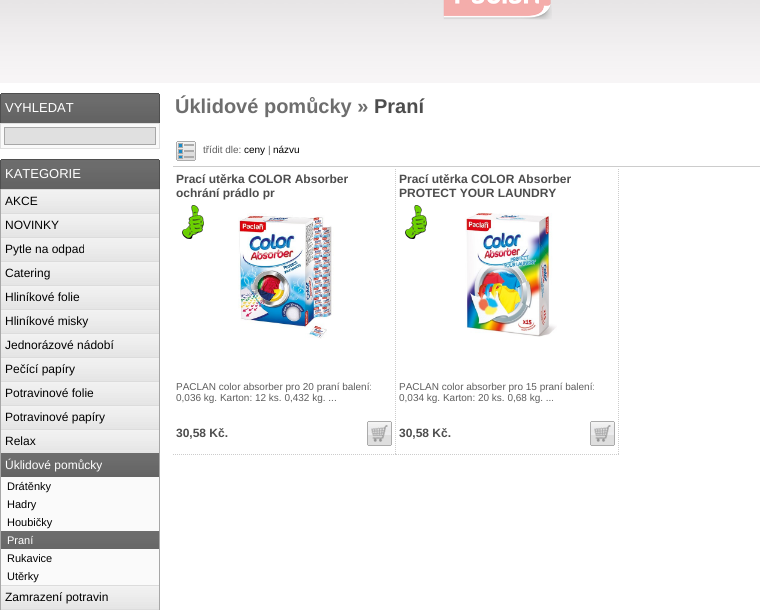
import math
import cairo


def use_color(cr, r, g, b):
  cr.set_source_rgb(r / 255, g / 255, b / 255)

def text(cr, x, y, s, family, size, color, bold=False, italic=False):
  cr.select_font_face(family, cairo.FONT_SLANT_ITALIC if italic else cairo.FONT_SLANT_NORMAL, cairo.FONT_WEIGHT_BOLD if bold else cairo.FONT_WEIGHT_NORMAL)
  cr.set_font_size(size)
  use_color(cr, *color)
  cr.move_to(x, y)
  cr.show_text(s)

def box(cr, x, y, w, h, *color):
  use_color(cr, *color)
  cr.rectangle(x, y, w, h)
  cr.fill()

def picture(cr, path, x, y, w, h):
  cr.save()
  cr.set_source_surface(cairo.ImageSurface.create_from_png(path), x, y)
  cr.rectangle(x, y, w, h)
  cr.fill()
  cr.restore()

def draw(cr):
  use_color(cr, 255, 255, 255)
  cr.paint()
  picture(cr, "img_01.png", 0, 0, 760, 83)
  picture(cr, "img_02.png", 443, 0, 109, 20)
  picture(cr, "img_03.png", 1, 93, 158, 30)
  picture(cr, "img_04.png", 0, 93, 1, 30)
  picture(cr, "img_05.png", 159, 93, 1, 30)
  box(cr, 1, 124, 158, 24, 250, 250, 250)
  box(cr, 0, 123, 160, 1, 223, 223, 223)
  box(cr, 159, 123, 1, 26, 223, 223, 223)
  box(cr, 0, 148, 160, 1, 223, 223, 223)
  box(cr, 0, 123, 1, 26, 223, 223, 223)
  use_color(cr, 224, 224, 224)
  cr.rectangle(4.5, 127.5, 151, 17)
  cr.fill_preserve()
  use_color(cr, 167, 167, 167)
  cr.set_line_width(1)
  cr.stroke()
  picture(cr, "img_03.png", 1, 159, 158, 30)
  picture(cr, "img_04.png", 0, 159, 1, 30)
  picture(cr, "img_05.png", 159, 159, 1, 30)
  box(cr, 159, 189, 1, 421, 167, 167, 167)
  box(cr, 0, 189, 1, 421, 167, 167, 167)
  picture(cr, "img_06.png", 1, 189, 158, 24)
  picture(cr, "img_06.png", 1, 213, 158, 24)
  picture(cr, "img_06.png", 1, 237, 158, 24)
  picture(cr, "img_06.png", 1, 261, 158, 24)
  picture(cr, "img_06.png", 1, 285, 158, 24)
  picture(cr, "img_06.png", 1, 309, 158, 24)
  picture(cr, "img_06.png", 1, 333, 158, 24)
  picture(cr, "img_06.png", 1, 357, 158, 24)
  picture(cr, "img_06.png", 1, 381, 158, 24)
  picture(cr, "img_06.png", 1, 405, 158, 24)
  picture(cr, "img_06.png", 1, 429, 158, 24)
  picture(cr, "img_07.png", 1, 453, 158, 24)
  box(cr, 1, 477, 158, 54, 250, 250, 250)
  picture(cr, "img_08.png", 1, 531, 158, 18)
  box(cr, 1, 549, 158, 36, 250, 250, 250)
  picture(cr, "img_06.png", 1, 585, 158, 24)
  box(cr, 1, 609, 158, 1, 220, 220, 220)
  box(cr, 173, 166, 587, 1, 204, 204, 204)
  picture(cr, "img_09.png", 176, 141, 20, 20)
  cr.new_path()
  cr.move_to(395.5, 169)
  cr.line_to(395.5, 455)
  cr.set_dash([1, 1])
  cr.stroke()
  cr.new_path()
  cr.move_to(173, 454.5)
  cr.line_to(396, 454.5)
  cr.stroke()
  picture(cr, "img_10.png", 182, 205, 22, 34)
  picture(cr, "img_11.png", 238, 213, 96, 126)
  picture(cr, "img_12.png", 367, 421, 25, 25)
  cr.new_path()
  cr.move_to(618.5, 169)
  cr.line_to(618.5, 455)
  cr.stroke()
  cr.new_path()
  cr.move_to(396, 454.5)
  cr.line_to(619, 454.5)
  cr.stroke()
  picture(cr, "img_10.png", 405, 205, 22, 34)
  picture(cr, "img_13.png", 465, 212, 92, 125)
  picture(cr, "img_12.png", 590, 421, 25, 25)
  text(cr, 5, 112, "VYHLEDAT", "Liberation Sans", 13, (255, 255, 255))
  text(cr, 5, 178, "KATEGORIE", "Liberation Sans", 13, (255, 255, 255))
  text(cr, 5, 205, "AKCE", "Liberation Sans", 12, (0, 0, 0))
  text(cr, 5, 229, "NOVINKY", "Liberation Sans", 12, (0, 0, 0))
  text(cr, 5, 253, "Pytle na odpad", "Liberation Sans", 12, (0, 0, 0))
  text(cr, 5, 277, "Catering", "Liberation Sans", 12, (0, 0, 0))
  text(cr, 5, 301, "Hliníkové folie", "Liberation Sans", 12, (0, 0, 0))
  text(cr, 5, 325, "Hliníkové misky", "Liberation Sans", 12, (0, 0, 0))
  text(cr, 5, 349, "Jednorázové nádobí", "Liberation Sans", 12, (0, 0, 0))
  text(cr, 5, 373, "Pečící papíry", "Liberation Sans", 12, (0, 0, 0))
  text(cr, 5, 397, "Potravinové folie", "Liberation Sans", 12, (0, 0, 0))
  text(cr, 5, 421, "Potravinové papíry", "Liberation Sans", 12, (0, 0, 0))
  text(cr, 5, 445, "Relax", "Liberation Sans", 12, (0, 0, 0))
  text(cr, 5, 469, "Úklidové pomůcky", "Liberation Sans", 12, (255, 255, 255))
  text(cr, 7, 490, "Drátěnky", "Liberation Sans", 11, (0, 0, 0))
  text(cr, 7, 508, "Hadry", "Liberation Sans", 11, (0, 0, 0))
  text(cr, 7, 526, "Houbičky", "Liberation Sans", 11, (0, 0, 0))
  text(cr, 7, 544, "Praní", "Liberation Sans", 11, (255, 255, 255))
  text(cr, 7, 562, "Rukavice", "Liberation Sans", 11, (0, 0, 0))
  text(cr, 7, 580, "Utěrky", "Liberation Sans", 11, (0, 0, 0))
  text(cr, 5, 601, "Zamrazení potravin", "Liberation Sans", 12, (0, 0, 0))
  text(cr, 175, 113, "Úklidové pomůcky »", "Liberation Sans", 20, (110, 110, 110), bold=True)
  text(cr, 374, 113, "Praní", "Liberation Sans", 20, (77, 77, 77), bold=True)
  text(cr, 203, 153, "třídit dle:", "Liberation Sans", 10, (93, 93, 93))
  text(cr, 244, 153, "ceny", "Liberation Sans", 10, (0, 0, 0))
  text(cr, 268, 153, "|", "Liberation Sans", 10, (93, 93, 93))
  text(cr, 273, 153, "názvu", "Liberation Sans", 10, (0, 0, 0))
  text(cr, 176, 183, "Prací utěrka COLOR Absorber", "Liberation Sans", 12, (77, 77, 77), bold=True)
  text(cr, 176, 197, "ochrání prádlo pr", "Liberation Sans", 12, (77, 77, 77), bold=True)
  text(cr, 176, 390, "PACLAN color absorber pro 20 praní balení:", "Liberation Sans", 10, (93, 93, 93))
  text(cr, 176, 401, "0,036 kg. Karton: 12 ks. 0,432 kg. ...", "Liberation Sans", 10, (93, 93, 93))
  text(cr, 176, 437, "30,58 Kč.", "Liberation Sans", 12, (77, 77, 77), bold=True)
  text(cr, 399, 183, "Prací utěrka COLOR Absorber", "Liberation Sans", 12, (77, 77, 77), bold=True)
  text(cr, 399, 197, "PROTECT YOUR LAUNDRY", "Liberation Sans", 12, (77, 77, 77), bold=True)
  text(cr, 399, 390, "PACLAN color absorber pro 15 praní balení:", "Liberation Sans", 10, (93, 93, 93))
  text(cr, 399, 401, "0,034 kg. Karton: 20 ks. 0,68 kg. ...", "Liberation Sans", 10, (93, 93, 93))
  text(cr, 399, 437, "30,58 Kč.", "Liberation Sans", 12, (77, 77, 77), bold=True)


surface = cairo.ImageSurface(cairo.FORMAT_RGB24, 760, 610)
cr = cairo.Context(surface)
options = cairo.FontOptions()
options.set_hint_metrics(cairo.HINT_METRICS_OFF)
options.set_hint_style(cairo.HINT_STYLE_NONE)
cr.set_font_options(options)
cr.set_miter_limit(4)
draw(cr)
surface.write_to_png("out.png")
